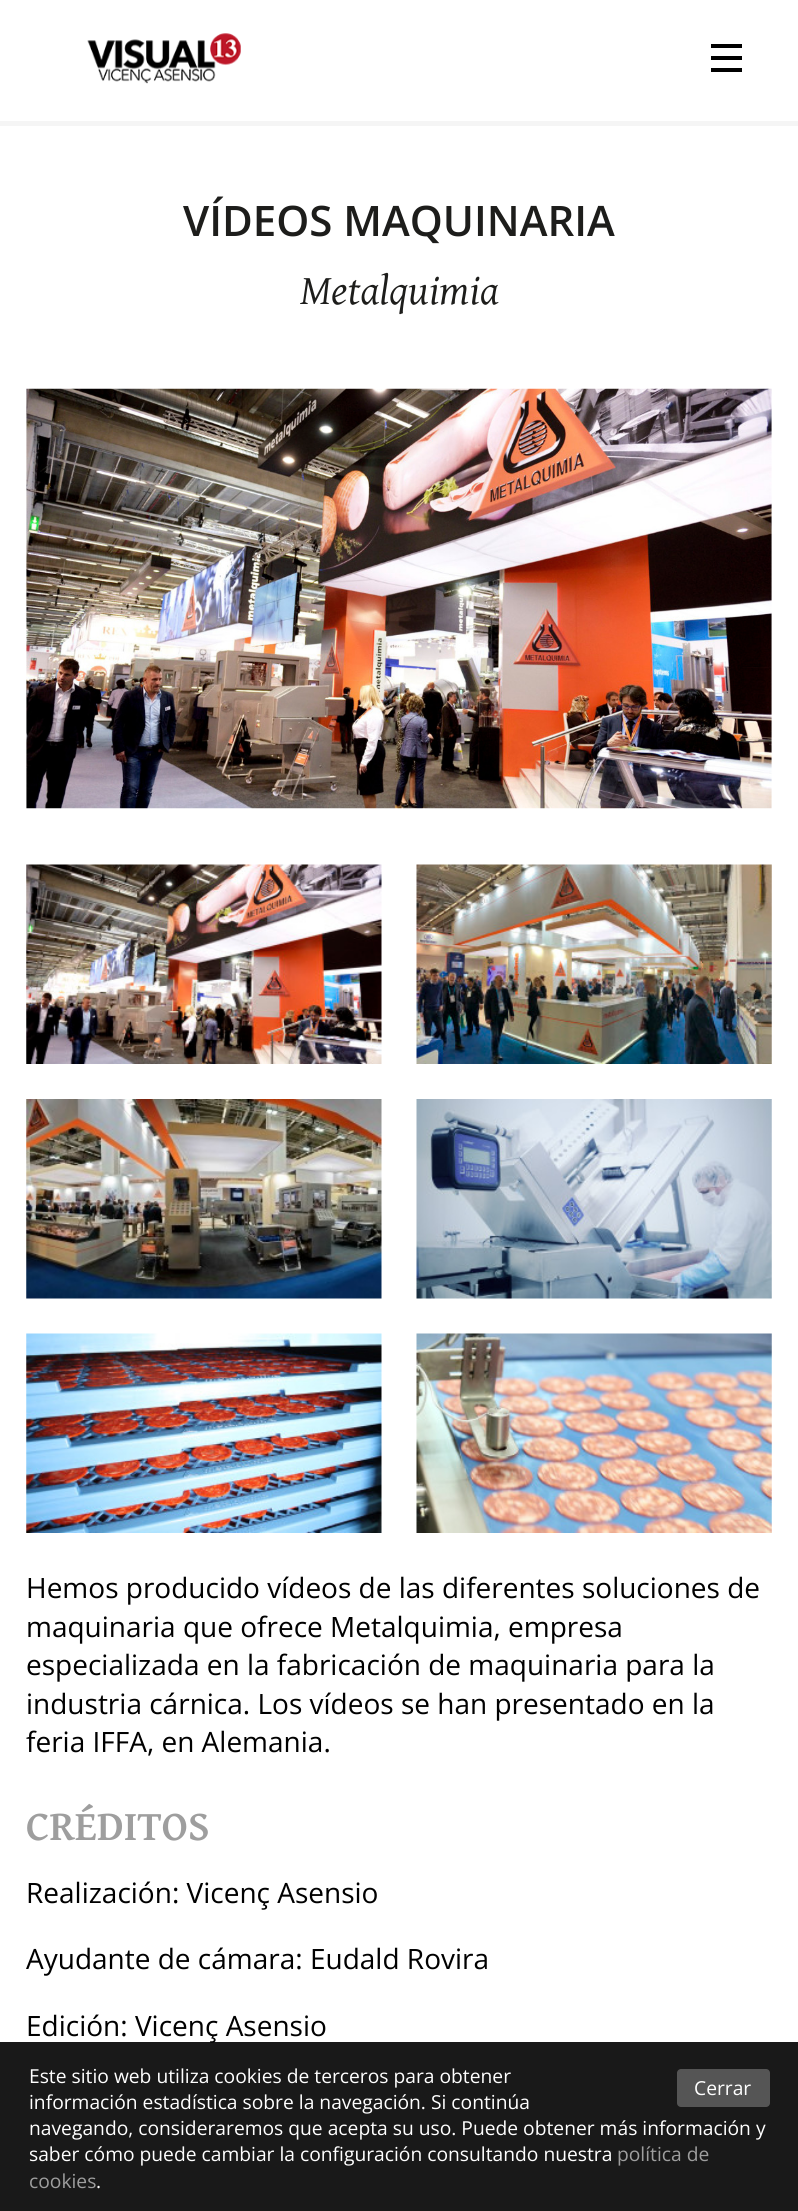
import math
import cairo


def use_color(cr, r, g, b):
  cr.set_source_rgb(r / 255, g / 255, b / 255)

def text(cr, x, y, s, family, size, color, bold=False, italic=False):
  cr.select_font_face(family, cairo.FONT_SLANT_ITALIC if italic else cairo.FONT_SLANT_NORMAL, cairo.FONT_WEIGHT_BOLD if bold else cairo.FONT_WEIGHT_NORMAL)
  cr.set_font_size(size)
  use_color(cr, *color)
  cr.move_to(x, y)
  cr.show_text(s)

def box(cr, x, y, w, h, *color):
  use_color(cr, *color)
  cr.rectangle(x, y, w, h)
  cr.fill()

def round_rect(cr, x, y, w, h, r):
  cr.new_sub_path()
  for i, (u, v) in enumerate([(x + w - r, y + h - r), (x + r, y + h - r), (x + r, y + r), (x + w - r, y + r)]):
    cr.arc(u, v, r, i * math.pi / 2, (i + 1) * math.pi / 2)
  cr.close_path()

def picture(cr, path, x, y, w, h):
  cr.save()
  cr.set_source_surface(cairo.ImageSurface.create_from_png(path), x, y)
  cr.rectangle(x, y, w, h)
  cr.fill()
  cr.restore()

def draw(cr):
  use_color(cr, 255, 255, 255)
  cr.paint()
  box(cr, 0, 121, 798, 5, 245, 245, 245)
  picture(cr, "img_01.png", 87, 33, 154, 51)
  box(cr, 711, 44, 31, 4, 0, 0, 0)
  box(cr, 711, 56, 31, 4, 0, 0, 0)
  box(cr, 711, 68, 31, 4, 0, 0, 0)
  picture(cr, "img_02.png", 26, 388, 746, 421)
  picture(cr, "img_03.png", 26, 864, 356, 200)
  picture(cr, "img_04.png", 416, 864, 356, 200)
  picture(cr, "img_05.png", 26, 1099, 356, 200)
  picture(cr, "img_06.png", 416, 1099, 356, 200)
  picture(cr, "img_07.png", 26, 1333, 356, 200)
  picture(cr, "img_08.png", 416, 1333, 356, 200)
  text(cr, 183, 236, "VÍDEOS MAQUINARIA", "Open Sans SemiBold", 42, (29, 29, 27))
  text(cr, 300, 304, "Metalquimia", "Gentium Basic", 42, (29, 29, 27), italic=True)
  text(cr, 26, 1598, "Hemos producido vídeos de las diferentes soluciones de", "Open Sans", 28, (0, 0, 0))
  text(cr, 26, 1637, "maquinaria que ofrece Metalquimia, empresa", "Open Sans", 28, (0, 0, 0))
  text(cr, 26, 1675, "especializada en la fabricación de maquinaria para la", "Open Sans", 28, (0, 0, 0))
  text(cr, 26, 1714, "industria cárnica. Los vídeos se han presentado en la", "Open Sans", 28, (0, 0, 0))
  text(cr, 26, 1752, "feria IFFA, en Alemania.", "Open Sans", 28, (0, 0, 0))
  text(cr, 26, 1840, "CRÉDITOS", "Gentium Basic", 42, (158, 158, 158), bold=True)
  text(cr, 26, 1903, "Realización: Vicenç Asensio", "Open Sans", 28, (0, 0, 0))
  text(cr, 26, 1969, "Ayudante de cámara: Eudald Rovira", "Open Sans", 28, (0, 0, 0))
  text(cr, 26, 2036, "Edición: Vicenç Asensio", "Open Sans", 28, (0, 0, 0))
  cr.set_source_rgba(0, 0, 0, 0.9)
  cr.rectangle(0, 2042, 798, 169)
  cr.fill()
  text(cr, 29, 2083, "Este sitio web utiliza cookies de terceros para obtener", "Open Sans", 19.25, (255, 255, 255))
  text(cr, 29, 2109, "información estadística sobre la navegación. Si continúa", "Open Sans", 19.25, (255, 255, 255))
  text(cr, 29, 2135, "navegando, consideraremos que acepta su uso. Puede obtener más información y", "Open Sans", 19.25, (255, 255, 255))
  text(cr, 29, 2161, "saber cómo puede cambiar la configuración consultando nuestra", "Open Sans", 19.25, (255, 255, 255))
  text(cr, 617, 2161, "política de", "Open Sans", 19.25, (158, 158, 158))
  text(cr, 29, 2188, "cookies", "Open Sans", 19.25, (158, 158, 158))
  text(cr, 96, 2188, ".", "Open Sans", 19.25, (255, 255, 255))
  use_color(cr, 85, 85, 85)
  round_rect(cr, 677, 2069, 93, 38, 4)
  cr.fill()
  text(cr, 694, 2095, "Cerrar", "Open Sans", 19.25, (255, 255, 255))


surface = cairo.ImageSurface(cairo.FORMAT_RGB24, 798, 2211)
cr = cairo.Context(surface)
options = cairo.FontOptions()
options.set_hint_metrics(cairo.HINT_METRICS_OFF)
options.set_hint_style(cairo.HINT_STYLE_NONE)
cr.set_font_options(options)
cr.set_miter_limit(4)
draw(cr)
surface.write_to_png("out.png")
